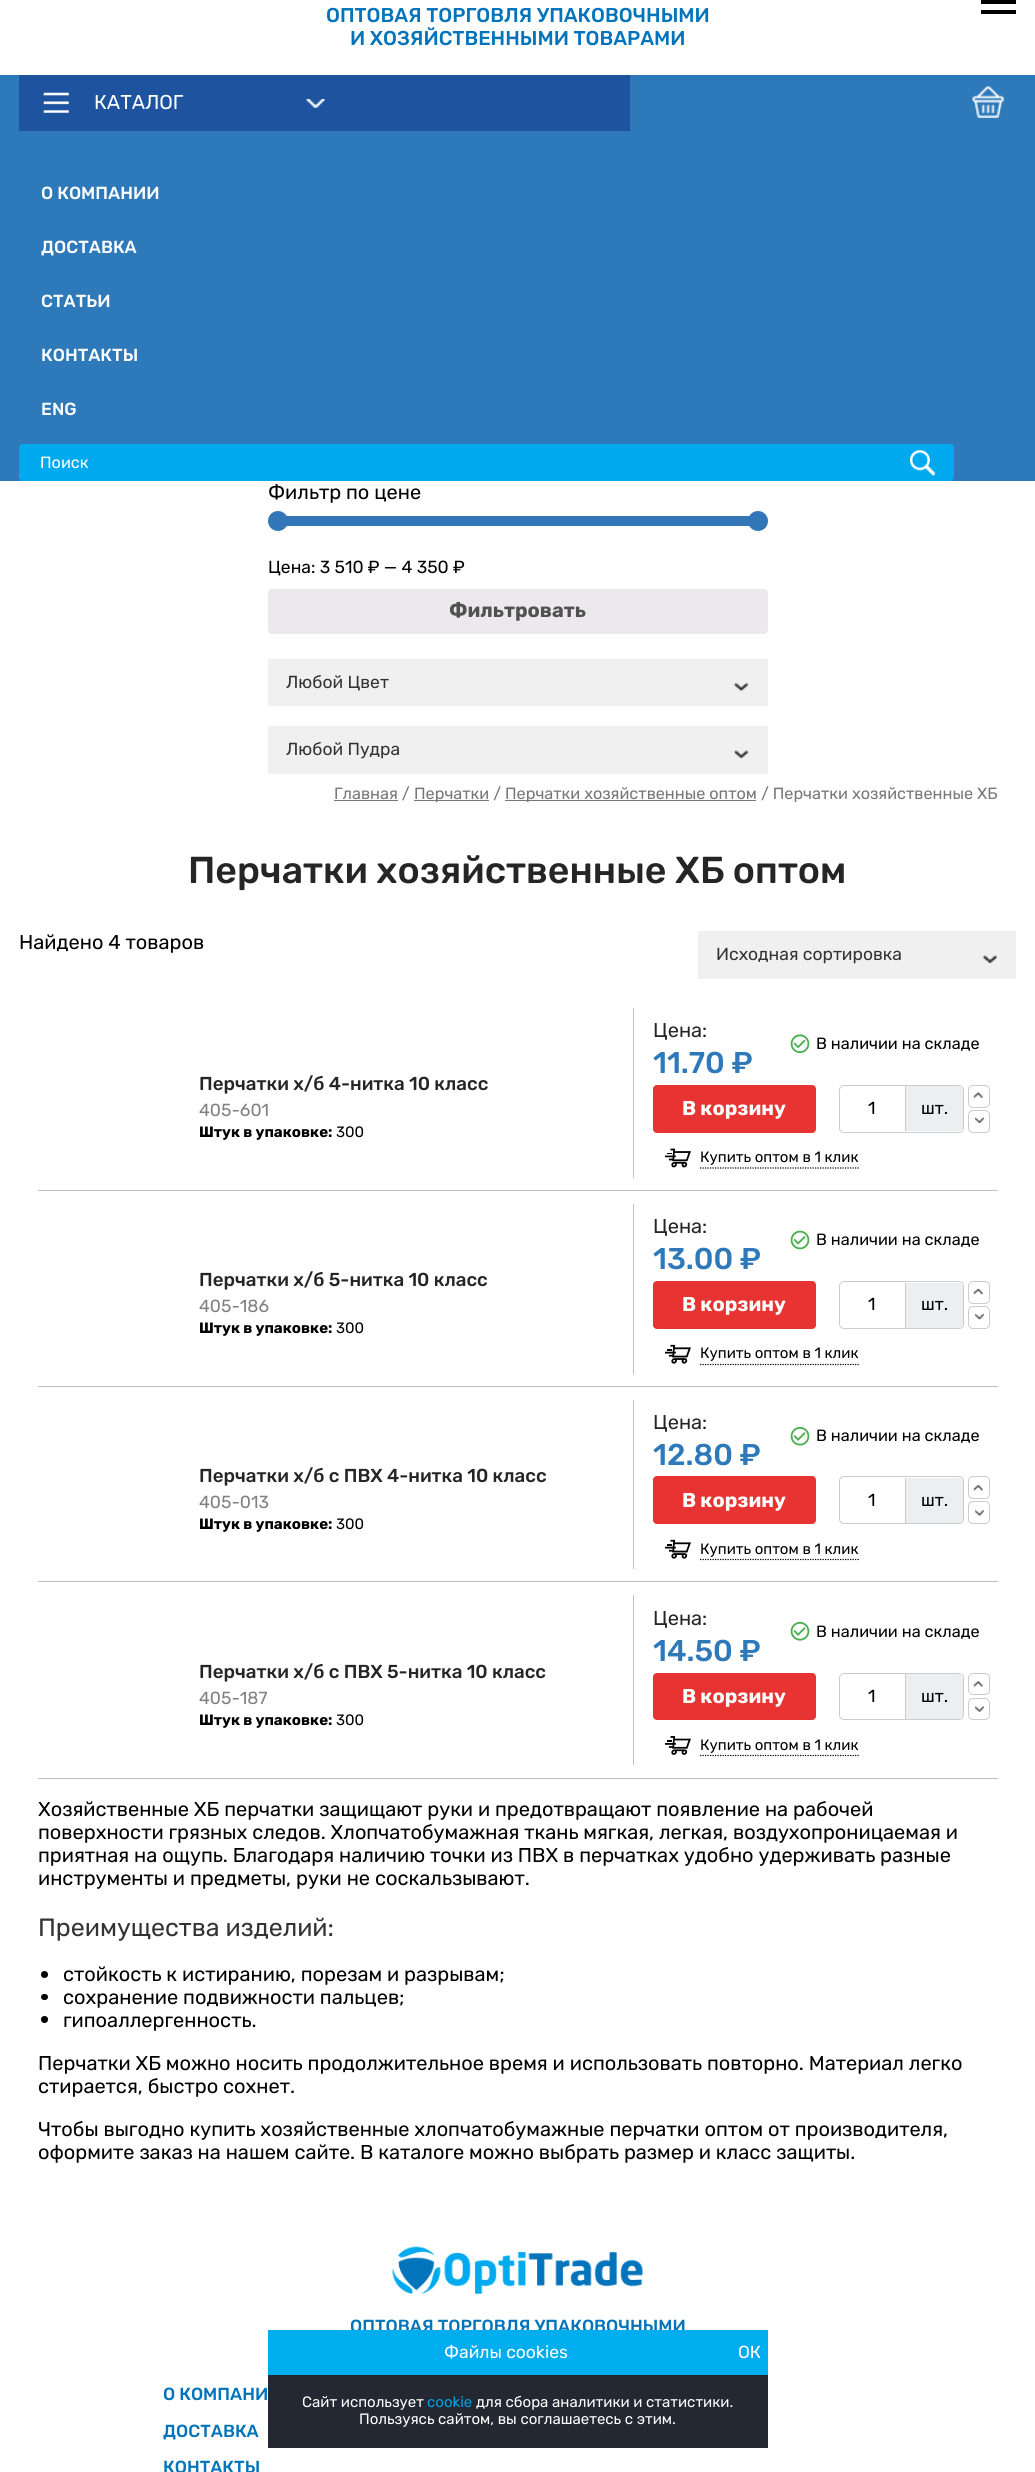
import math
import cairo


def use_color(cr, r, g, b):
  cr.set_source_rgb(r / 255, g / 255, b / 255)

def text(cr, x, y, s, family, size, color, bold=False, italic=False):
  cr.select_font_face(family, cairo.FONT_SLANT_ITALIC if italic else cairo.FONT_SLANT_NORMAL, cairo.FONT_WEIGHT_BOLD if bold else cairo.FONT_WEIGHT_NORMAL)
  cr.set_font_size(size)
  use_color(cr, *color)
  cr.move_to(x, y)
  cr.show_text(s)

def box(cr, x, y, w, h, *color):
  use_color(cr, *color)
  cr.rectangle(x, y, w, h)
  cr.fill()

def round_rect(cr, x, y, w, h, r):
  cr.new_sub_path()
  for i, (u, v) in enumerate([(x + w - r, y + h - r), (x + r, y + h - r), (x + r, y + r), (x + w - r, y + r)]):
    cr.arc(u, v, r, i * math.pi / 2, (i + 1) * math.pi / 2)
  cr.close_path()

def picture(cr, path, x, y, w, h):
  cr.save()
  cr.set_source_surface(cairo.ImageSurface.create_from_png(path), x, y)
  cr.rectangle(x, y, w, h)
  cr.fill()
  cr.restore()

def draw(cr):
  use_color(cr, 255, 255, 255)
  cr.paint()
  box(cr, 981, 0, 35, 4, 0, 0, 0)
  box(cr, 981, 10, 35, 4, 0, 0, 0)
  box(cr, 0, 75, 1035, 406, 46, 121, 186)
  box(cr, 19, 75, 611, 56, 30, 84, 159)
  picture(cr, "img_01.png", 43, 92, 282, 21)
  picture(cr, "img_02.png", 972, 86, 32, 32)
  use_color(cr, 1, 170, 239)
  round_rect(cr, 19.5, 444.5, 934, 36, 3.5)
  cr.fill_preserve()
  cr.set_line_width(1)
  cr.stroke()
  picture(cr, "img_03.png", 910, 450, 25, 26)
  box(cr, 286, 516, 464, 10, 51, 118, 184)
  cr.arc(278, 521, 10, 0, 2 * math.pi)
  cr.fill()
  cr.arc(758, 521, 10, 0, 2 * math.pi)
  cr.fill()
  use_color(cr, 235, 233, 235)
  round_rect(cr, 268, 589, 500, 45, 4)
  cr.fill()
  box(cr, 268, 659, 500, 47, 240, 240, 240)
  picture(cr, "img_04.png", 733, 682, 16, 10)
  box(cr, 268, 726, 500, 48, 240, 240, 240)
  picture(cr, "img_05.png", 733, 750, 16, 9)
  box(cr, 334, 800, 64, 1, 119, 119, 119)
  box(cr, 414, 800, 75, 1, 119, 119, 119)
  box(cr, 505, 800, 251, 1, 119, 119, 119)
  box(cr, 698, 931, 318, 48, 240, 240, 240)
  picture(cr, "img_06.png", 982, 955, 16, 9)
  box(cr, 38, 1190, 960, 1, 191, 191, 191)
  box(cr, 633, 1008, 1, 170, 191, 191, 191)
  picture(cr, "img_07.png", 790, 1034, 20, 20)
  use_color(cr, 231, 51, 49)
  round_rect(cr, 653, 1085, 163, 48, 4)
  cr.fill()
  round_rect(cr, 839.5, 1085.5, 124, 47, 4.5)
  use_color(cr, 204, 204, 204)
  cr.stroke()
  use_color(cr, 236, 238, 239)
  cr.new_path()
  cr.move_to(905, 1086)
  cr.line_to(958, 1086)
  cr.curve_to(961, 1086, 963, 1088, 963, 1091)
  cr.line_to(963, 1126)
  cr.curve_to(963, 1129, 961, 1131, 958, 1131)
  cr.line_to(905, 1131)
  cr.close_path()
  cr.fill()
  box(cr, 905, 1086, 1, 45, 204, 204, 204)
  picture(cr, "img_08.png", 973, 1092, 10, 6)
  round_rect(cr, 968.5, 1085.5, 21, 22, 4.5)
  cr.stroke()
  picture(cr, "img_09.png", 974, 1117, 10, 6)
  round_rect(cr, 968.5, 1110.5, 21, 22, 4.5)
  cr.stroke()
  picture(cr, "img_10.png", 665, 1148, 26, 20)
  cr.new_path()
  cr.move_to(700, 1168)
  cr.line_to(859, 1168)
  use_color(cr, 0, 0, 0)
  cr.set_line_width(1.2)
  cr.set_dash([1.25, 1.25])
  cr.stroke()
  box(cr, 38, 1386, 960, 1, 191, 191, 191)
  box(cr, 633, 1204, 1, 170, 191, 191, 191)
  picture(cr, "img_11.png", 790, 1230, 20, 20)
  use_color(cr, 231, 51, 49)
  round_rect(cr, 653, 1281, 163, 48, 4)
  cr.fill()
  round_rect(cr, 839.5, 1281.5, 124, 47, 4.5)
  use_color(cr, 204, 204, 204)
  cr.set_line_width(1)
  cr.set_dash([])
  cr.stroke()
  use_color(cr, 236, 238, 239)
  cr.new_path()
  cr.move_to(905, 1283)
  cr.line_to(958, 1283)
  cr.curve_to(961, 1283, 963, 1285, 963, 1288)
  cr.line_to(963, 1323)
  cr.curve_to(963, 1326, 961, 1328, 958, 1328)
  cr.line_to(905, 1328)
  cr.close_path()
  cr.fill()
  box(cr, 905, 1283, 1, 45, 204, 204, 204)
  picture(cr, "img_12.png", 973, 1288, 10, 7)
  round_rect(cr, 968.5, 1281.5, 21, 22, 4.5)
  cr.stroke()
  picture(cr, "img_13.png", 974, 1313, 10, 7)
  round_rect(cr, 968.5, 1306.5, 21, 22, 4.5)
  cr.stroke()
  picture(cr, "img_14.png", 665, 1344, 26, 20)
  cr.new_path()
  cr.move_to(700, 1364.5)
  cr.line_to(859, 1364.5)
  use_color(cr, 0, 0, 0)
  cr.set_line_width(1.2)
  cr.set_dash([1.25, 1.25])
  cr.stroke()
  box(cr, 38, 1581, 960, 1, 191, 191, 191)
  box(cr, 633, 1400, 1, 169, 191, 191, 191)
  picture(cr, "img_15.png", 790, 1426, 20, 20)
  use_color(cr, 231, 51, 49)
  round_rect(cr, 653, 1476, 163, 48, 4)
  cr.fill()
  round_rect(cr, 839.5, 1476.5, 124, 47, 4.5)
  use_color(cr, 204, 204, 204)
  cr.set_line_width(1)
  cr.set_dash([])
  cr.stroke()
  use_color(cr, 236, 238, 239)
  cr.new_path()
  cr.move_to(905, 1478)
  cr.line_to(958, 1478)
  cr.curve_to(961, 1478, 963, 1480, 963, 1483)
  cr.line_to(963, 1518)
  cr.curve_to(963, 1521, 961, 1523, 958, 1523)
  cr.line_to(905, 1523)
  cr.close_path()
  cr.fill()
  box(cr, 905, 1478, 1, 45, 204, 204, 204)
  picture(cr, "img_16.png", 973, 1485, 10, 6)
  round_rect(cr, 968.5, 1476.5, 21, 22, 4.5)
  cr.stroke()
  picture(cr, "img_17.png", 974, 1510, 10, 6)
  round_rect(cr, 968.5, 1501.5, 21, 22, 4.5)
  cr.stroke()
  picture(cr, "img_14.png", 665, 1539, 26, 20)
  cr.new_path()
  cr.move_to(700, 1559.5)
  cr.line_to(859, 1559.5)
  use_color(cr, 0, 0, 0)
  cr.set_line_width(1.2)
  cr.set_dash([1.25, 1.25])
  cr.stroke()
  box(cr, 38, 1778, 960, 1, 191, 191, 191)
  box(cr, 633, 1595, 1, 170, 191, 191, 191)
  picture(cr, "img_15.png", 790, 1621, 20, 20)
  use_color(cr, 231, 51, 49)
  round_rect(cr, 653, 1673, 163, 47, 4)
  cr.fill()
  round_rect(cr, 839.5, 1673.5, 124, 46, 4.5)
  use_color(cr, 204, 204, 204)
  cr.set_line_width(1)
  cr.set_dash([])
  cr.stroke()
  use_color(cr, 236, 238, 239)
  cr.new_path()
  cr.move_to(905, 1674)
  cr.line_to(958, 1674)
  cr.curve_to(961, 1674, 963, 1676, 963, 1679)
  cr.line_to(963, 1714)
  cr.curve_to(963, 1717, 961, 1719, 958, 1719)
  cr.line_to(905, 1719)
  cr.close_path()
  cr.fill()
  box(cr, 905, 1674, 1, 45, 204, 204, 204)
  picture(cr, "img_18.png", 973, 1681, 10, 6)
  round_rect(cr, 968.5, 1673.5, 21, 21, 4.5)
  cr.stroke()
  picture(cr, "img_19.png", 974, 1706, 10, 6)
  round_rect(cr, 968.5, 1698.5, 21, 21, 4.5)
  cr.stroke()
  picture(cr, "img_20.png", 665, 1736, 26, 19)
  cr.new_path()
  cr.move_to(700, 1755.5)
  cr.line_to(859, 1755.5)
  use_color(cr, 0, 0, 0)
  cr.set_line_width(1.2)
  cr.set_dash([1.25, 1.25])
  cr.stroke()
  cr.arc(44.5, 1974.5, 3.5, 0, 2 * math.pi)
  cr.fill()
  round_rect(cr, 41, 1994, 7, 6, 3)
  cr.fill()
  cr.arc(44.5, 2019.5, 3.5, 0, 2 * math.pi)
  cr.fill()
  picture(cr, "img_21.png", 392, 2246, 251, 48)
  box(cr, 268, 2375, 500, 73, 35, 40, 50)
  text(cr, 326, 22, "ОПТОВАЯ ТОРГОВЛЯ УПАКОВОЧНЫМИ", "Rubik Medium", 20, (2, 116, 187))
  text(cr, 350, 45, "И ХОЗЯЙСТВЕННЫМИ ТОВАРАМИ", "Rubik Medium", 20, (2, 116, 187))
  text(cr, 94, 109, "КАТАЛОГ", "Rubik", 20, (255, 255, 255))
  text(cr, 41, 199, "О КОМПАНИИ", "Rubik Medium", 17.5, (255, 255, 255))
  text(cr, 41, 253, "ДОСТАВКА", "Rubik Medium", 17.5, (255, 255, 255))
  text(cr, 41, 307, "СТАТЬИ", "Rubik Medium", 17.5, (255, 255, 255))
  text(cr, 41, 361, "КОНТАКТЫ", "Rubik Medium", 17.5, (255, 255, 255))
  text(cr, 41, 415, "ENG", "Rubik Medium", 17.5, (255, 255, 255))
  text(cr, 40, 468, "Поиск", "Rubik", 16.25, (255, 255, 255))
  text(cr, 268, 499, "Фильтр по цене", "Rubik", 20, (0, 0, 0))
  text(cr, 268, 573, "Цена: 3 510 ₽ — 4 350 ₽", "Rubik", 17.5, (0, 0, 0))
  text(cr, 449, 617, "Фильтровать", "Rubik", 20, (81, 81, 81), bold=True)
  text(cr, 286, 688, "Любой Цвет", "Rubik", 17.5, (51, 51, 51))
  text(cr, 286, 755, "Любой Пудра", "Rubik", 17.5, (51, 51, 51))
  text(cr, 334, 799, "Главная /", "Rubik", 16.25, (119, 119, 119))
  text(cr, 414, 799, "Перчатки /", "Rubik", 16.25, (119, 119, 119))
  text(cr, 505, 799, "Перчатки хозяйственные оптом / Перчатки хозяйственные ХБ", "Rubik", 16.25, (119, 119, 119))
  text(cr, 188, 883, "Перчатки хозяйственные ХБ оптом", "Rubik Medium", 37.5, (37, 37, 37))
  text(cr, 19, 949, "Найдено 4 товаров", "Rubik", 20, (0, 0, 0))
  text(cr, 716, 960, "Исходная сортировка", "Rubik", 17.5, (51, 51, 51))
  text(cr, 199, 1090, "Перчатки х/б 4-нитка 10 класс", "Rubik Medium", 18.75, (37, 37, 37))
  text(cr, 199, 1116, "405-601", "Rubik", 17.5, (128, 128, 128))
  text(cr, 199, 1137, "Штук в упаковке:", "Rubik", 15, (0, 0, 0), bold=True)
  text(cr, 336, 1137, "300", "Rubik", 15, (0, 0, 0))
  text(cr, 653, 1037, "Цена:", "Rubik", 20, (37, 37, 37))
  text(cr, 816, 1049, "В наличии на складе", "Rubik", 16.25, (0, 0, 0))
  text(cr, 653, 1073, "11.70 ₽", "Rubik Medium", 30, (46, 121, 186))
  text(cr, 682, 1115, "В корзину", "Rubik", 20, (255, 255, 255), bold=True)
  text(cr, 868, 1114, "1", "Rubik", 17.5, (0, 0, 0))
  text(cr, 921, 1114, "шт.", "Rubik", 17.5, (0, 0, 0))
  text(cr, 700, 1162, "Купить оптом в 1 клик", "Rubik", 15, (0, 0, 0))
  text(cr, 199, 1286, "Перчатки х/б 5-нитка 10 класс", "Rubik Medium", 18.75, (37, 37, 37))
  text(cr, 199, 1312, "405-186", "Rubik", 17.5, (128, 128, 128))
  text(cr, 199, 1333, "Штук в упаковке:", "Rubik", 15, (0, 0, 0), bold=True)
  text(cr, 336, 1333, "300", "Rubik", 15, (0, 0, 0))
  text(cr, 653, 1233, "Цена:", "Rubik", 20, (37, 37, 37))
  text(cr, 816, 1245, "В наличии на складе", "Rubik", 16.25, (0, 0, 0))
  text(cr, 653, 1269, "13.00 ₽", "Rubik Medium", 30, (46, 121, 186))
  text(cr, 682, 1311, "В корзину", "Rubik", 20, (255, 255, 255), bold=True)
  text(cr, 868, 1310, "1", "Rubik", 17.5, (0, 0, 0))
  text(cr, 921, 1310, "шт.", "Rubik", 17.5, (0, 0, 0))
  text(cr, 700, 1358, "Купить оптом в 1 клик", "Rubik", 15, (0, 0, 0))
  text(cr, 199, 1482, "Перчатки х/б с ПВХ 4-нитка 10 класс", "Rubik Medium", 18.75, (37, 37, 37))
  text(cr, 199, 1508, "405-013", "Rubik", 17.5, (128, 128, 128))
  text(cr, 199, 1529, "Штук в упаковке:", "Rubik", 15, (0, 0, 0), bold=True)
  text(cr, 336, 1529, "300", "Rubik", 15, (0, 0, 0))
  text(cr, 653, 1429, "Цена:", "Rubik", 20, (37, 37, 37))
  text(cr, 816, 1441, "В наличии на складе", "Rubik", 16.25, (0, 0, 0))
  text(cr, 653, 1465, "12.80 ₽", "Rubik Medium", 30, (46, 121, 186))
  text(cr, 682, 1507, "В корзину", "Rubik", 20, (255, 255, 255), bold=True)
  text(cr, 868, 1506, "1", "Rubik", 17.5, (0, 0, 0))
  text(cr, 921, 1506, "шт.", "Rubik", 17.5, (0, 0, 0))
  text(cr, 700, 1554, "Купить оптом в 1 клик", "Rubik", 15, (0, 0, 0))
  text(cr, 199, 1678, "Перчатки х/б с ПВХ 5-нитка 10 класс", "Rubik Medium", 18.75, (37, 37, 37))
  text(cr, 199, 1704, "405-187", "Rubik", 17.5, (128, 128, 128))
  text(cr, 199, 1725, "Штук в упаковке:", "Rubik", 15, (0, 0, 0), bold=True)
  text(cr, 336, 1725, "300", "Rubik", 15, (0, 0, 0))
  text(cr, 653, 1625, "Цена:", "Rubik", 20, (37, 37, 37))
  text(cr, 816, 1637, "В наличии на складе", "Rubik", 16.25, (0, 0, 0))
  text(cr, 653, 1661, "14.50 ₽", "Rubik Medium", 30, (46, 121, 186))
  text(cr, 682, 1703, "В корзину", "Rubik", 20, (255, 255, 255), bold=True)
  text(cr, 868, 1702, "1", "Rubik", 17.5, (0, 0, 0))
  text(cr, 921, 1702, "шт.", "Rubik", 17.5, (0, 0, 0))
  text(cr, 700, 1750, "Купить оптом в 1 клик", "Rubik", 15, (0, 0, 0))
  text(cr, 38, 1816, "Хозяйственные ХБ перчатки защищают руки и предотвращают появление на рабочей", "Rubik", 20, (0, 0, 0))
  text(cr, 38, 1839, "поверхности грязных следов. Хлопчатобумажная ткань мягкая, легкая, воздухопроницаемая и", "Rubik", 20, (0, 0, 0))
  text(cr, 38, 1862, "приятная на ощупь. Благодаря наличию точки из ПВХ в перчатках удобно удерживать разные", "Rubik", 20, (0, 0, 0))
  text(cr, 38, 1885, "инструменты и предметы, руки не соскальзывают.", "Rubik", 20, (0, 0, 0))
  text(cr, 38, 1936, "Преимущества изделий:", "Rubik", 25, (51, 51, 51))
  text(cr, 63, 1981, "стойкость к истиранию, порезам и разрывам;", "Rubik", 20, (0, 0, 0))
  text(cr, 63, 2004, "сохранение подвижности пальцев;", "Rubik", 20, (0, 0, 0))
  text(cr, 63, 2027, "гипоаллергенность.", "Rubik", 20, (0, 0, 0))
  text(cr, 38, 2070, "Перчатки ХБ можно носить продолжительное время и использовать повторно. Материал легко", "Rubik", 20, (0, 0, 0))
  text(cr, 38, 2093, "стирается, быстро сохнет.", "Rubik", 20, (0, 0, 0))
  text(cr, 38, 2136, "Чтобы выгодно купить хозяйственные хлопчатобумажные перчатки оптом от производителя,", "Rubik", 20, (0, 0, 0))
  text(cr, 38, 2159, "оформите заказ на нашем сайте. В каталоге можно выбрать размер и класс защиты.", "Rubik", 20, (0, 0, 0))
  text(cr, 350, 2332, "ОПТОВАЯ ТОРГОВЛЯ УПАКОВОЧНЫМИ", "Rubik Medium", 17.5, (2, 116, 187))
  text(cr, 163, 2400, "О КОМПАНИ", "Rubik Medium", 17.5, (2, 116, 187))
  text(cr, 163, 2437, "ДОСТАВКА", "Rubik Medium", 17.5, (2, 116, 187))
  text(cr, 163, 2473, "КОНТАКТЫ", "Rubik Medium", 17.5, (2, 116, 187))
  box(cr, 268, 2330, 500, 45, 0, 173, 239)
  text(cr, 444, 2358, "Файлы cookies", "Rubik", 17.5, (255, 255, 255))
  text(cr, 738, 2358, "ОК", "Rubik", 17.5, (255, 255, 255))
  text(cr, 302, 2407, "Сайт использует", "Rubik", 15, (255, 255, 255))
  text(cr, 427, 2407, "cookie", "Rubik", 15, (3, 161, 222))
  text(cr, 476, 2407, "для сбора аналитики и статистики.", "Rubik", 15, (255, 255, 255))
  text(cr, 359, 2424, "Пользуясь сайтом, вы соглашаетесь с этим.", "Rubik", 15, (255, 255, 255))


surface = cairo.ImageSurface(cairo.FORMAT_RGB24, 1035, 2472)
cr = cairo.Context(surface)
options = cairo.FontOptions()
options.set_hint_metrics(cairo.HINT_METRICS_OFF)
options.set_hint_style(cairo.HINT_STYLE_NONE)
cr.set_font_options(options)
cr.set_miter_limit(4)
draw(cr)
surface.write_to_png("out.png")
